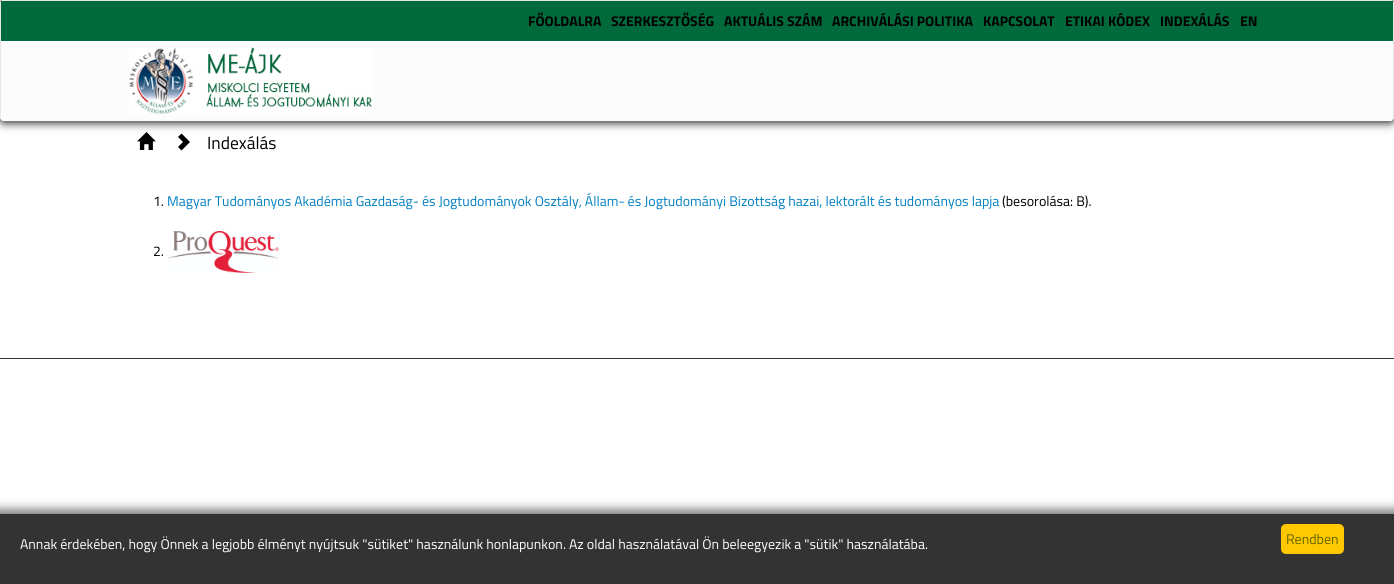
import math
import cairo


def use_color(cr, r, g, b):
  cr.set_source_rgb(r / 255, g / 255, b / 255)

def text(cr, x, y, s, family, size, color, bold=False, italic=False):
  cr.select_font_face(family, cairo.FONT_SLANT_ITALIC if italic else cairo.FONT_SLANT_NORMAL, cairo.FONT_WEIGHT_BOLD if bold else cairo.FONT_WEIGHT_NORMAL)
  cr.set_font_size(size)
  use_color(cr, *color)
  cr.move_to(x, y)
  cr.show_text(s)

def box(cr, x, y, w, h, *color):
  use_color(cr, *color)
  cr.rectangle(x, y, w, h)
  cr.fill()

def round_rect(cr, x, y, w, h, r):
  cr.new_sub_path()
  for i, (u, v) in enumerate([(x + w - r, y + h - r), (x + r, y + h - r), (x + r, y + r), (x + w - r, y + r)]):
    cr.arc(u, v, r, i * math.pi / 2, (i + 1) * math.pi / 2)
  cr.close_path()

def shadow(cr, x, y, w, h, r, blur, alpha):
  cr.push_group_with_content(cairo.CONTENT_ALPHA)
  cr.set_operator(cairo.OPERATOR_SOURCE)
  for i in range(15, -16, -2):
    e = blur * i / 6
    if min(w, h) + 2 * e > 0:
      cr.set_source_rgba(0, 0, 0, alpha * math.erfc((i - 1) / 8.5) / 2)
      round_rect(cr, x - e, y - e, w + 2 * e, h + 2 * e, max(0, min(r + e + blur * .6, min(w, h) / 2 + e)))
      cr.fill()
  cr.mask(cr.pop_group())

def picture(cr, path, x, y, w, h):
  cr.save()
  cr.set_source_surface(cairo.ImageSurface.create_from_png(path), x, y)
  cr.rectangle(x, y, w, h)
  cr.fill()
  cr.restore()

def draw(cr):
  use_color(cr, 255, 255, 255)
  cr.paint()
  cr.save()
  cr.set_fill_rule(cairo.FILL_RULE_EVEN_ODD)
  cr.new_path()
  cr.move_to(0, 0)
  cr.line_to(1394, 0)
  cr.line_to(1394, 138)
  cr.line_to(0, 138)
  cr.close_path()
  cr.move_to(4, 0)
  cr.line_to(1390, 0)
  cr.curve_to(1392, 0, 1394, 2, 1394, 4)
  cr.line_to(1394, 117)
  cr.curve_to(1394, 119, 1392, 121, 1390, 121)
  cr.line_to(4, 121)
  cr.curve_to(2, 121, 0, 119, 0, 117)
  cr.line_to(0, 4)
  cr.curve_to(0, 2, 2, 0, 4, 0)
  cr.close_path()
  cr.clip()
  use_color(cr, 0, 0, 0)
  shadow(cr, 0, 1, 1394, 121, 4, 5, 1)
  cr.restore()
  use_color(cr, 252, 252, 252)
  cr.new_path()
  cr.move_to(4, 1)
  cr.line_to(1390, 1)
  cr.curve_to(1392, 1, 1393, 2, 1393, 4)
  cr.line_to(1393, 117)
  cr.curve_to(1393, 119, 1392, 121, 1390, 121)
  cr.line_to(4, 121)
  cr.curve_to(2, 121, 1, 119, 1, 117)
  cr.line_to(1, 4)
  cr.curve_to(1, 2, 2, 1, 4, 1)
  cr.close_path()
  cr.fill()
  use_color(cr, 231, 231, 231)
  cr.set_fill_rule(cairo.FILL_RULE_EVEN_ODD)
  cr.new_path()
  cr.move_to(4, 0)
  cr.line_to(1390, 0)
  cr.curve_to(1392, 0, 1394, 2, 1394, 4)
  cr.line_to(1394, 117)
  cr.curve_to(1394, 119, 1392, 121, 1390, 121)
  cr.line_to(4, 121)
  cr.curve_to(2, 121, 0, 119, 0, 117)
  cr.line_to(0, 4)
  cr.curve_to(0, 2, 2, 0, 4, 0)
  cr.close_path()
  cr.move_to(4, 1)
  cr.line_to(1390, 1)
  cr.curve_to(1392, 1, 1393, 2, 1393, 4)
  cr.line_to(1393, 117)
  cr.curve_to(1393, 119, 1392, 121, 1390, 121)
  cr.line_to(4, 121)
  cr.curve_to(2, 121, 1, 119, 1, 117)
  cr.line_to(1, 4)
  cr.curve_to(1, 2, 2, 1, 4, 1)
  cr.close_path()
  cr.fill()
  box(cr, 1, 1, 1392, 40, 0, 106, 60)
  picture(cr, "img_01.png", 129, 47, 243, 67)
  picture(cr, "img_02.png", 137, 132, 19, 18)
  use_color(cr, 0, 0, 0)
  cr.set_fill_rule(cairo.FILL_RULE_WINDING)
  cr.new_path()
  cr.move_to(178, 147)
  cr.line_to(183, 142)
  cr.line_to(178, 137)
  cr.line_to(181.5, 133.5)
  cr.line_to(190, 142)
  cr.line_to(181.5, 150.5)
  cr.close_path()
  cr.fill()
  picture(cr, "img_03.png", 167, 231, 112, 42)
  box(cr, 0, 358, 1394, 1, 52, 52, 52)
  use_color(cr, 0, 0, 0)
  shadow(cr, -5, 509, 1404, 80, 0, 5, 0.5)
  box(cr, 0, 514, 1394, 70, 51, 51, 51)
  use_color(cr, 255, 200, 0)
  round_rect(cr, 1281, 524, 63, 30, 5)
  cr.fill()
  text(cr, 528, 26, "FŐOLDALRA", "Titillium Web", 14, (0, 0, 0), bold=True)
  text(cr, 611, 26, "SZERKESZTŐSÉG", "Titillium Web", 14, (0, 0, 0), bold=True)
  text(cr, 724, 26, "AKTUÁLIS SZÁM", "Titillium Web", 14, (0, 0, 0), bold=True)
  text(cr, 832, 26, "ARCHIVÁLÁSI POLITIKA", "Titillium Web", 14, (0, 0, 0), bold=True)
  text(cr, 983, 26, "KAPCSOLAT", "Titillium Web", 14, (0, 0, 0), bold=True)
  text(cr, 1065, 26, "ETIKAI KÓDEX", "Titillium Web", 14, (0, 0, 0), bold=True)
  text(cr, 1160, 26, "INDEXÁLÁS", "Titillium Web", 14, (0, 0, 0), bold=True)
  text(cr, 1240, 26, "EN", "Titillium Web", 14, (0, 0, 0), bold=True)
  text(cr, 207, 149, "Indexálás", "Titillium Web", 17.5, (0, 0, 0))
  text(cr, 153, 206, "1.", "Titillium Web", 14, (0, 0, 0))
  text(cr, 167, 206, "Magyar Tudományos Akadémia Gazdaság- és Jogtudományok Osztály, Állam- és Jogtudományi Bizottság hazai, lektorált és tudományos lapja", "Titillium Web", 14, (0, 127, 194))
  text(cr, 1002, 206, "(besorolása: B).", "Titillium Web", 14, (0, 0, 0))
  text(cr, 153, 256, "2.", "Titillium Web", 14, (0, 0, 0))
  text(cr, 20, 549, "Annak érdekében, hogy Önnek a legjobb élményt nyújtsuk \"sütiket\" használunk honlapunkon. Az oldal használatával Ön beleegyezik a \"sütik\" használatába.", "Titillium Web", 14, (255, 255, 255))
  text(cr, 1286, 544, "Rendben", "Titillium Web", 14, (100, 100, 0))


surface = cairo.ImageSurface(cairo.FORMAT_RGB24, 1394, 584)
cr = cairo.Context(surface)
options = cairo.FontOptions()
options.set_hint_metrics(cairo.HINT_METRICS_OFF)
options.set_hint_style(cairo.HINT_STYLE_NONE)
cr.set_font_options(options)
cr.set_miter_limit(4)
draw(cr)
surface.write_to_png("out.png")
